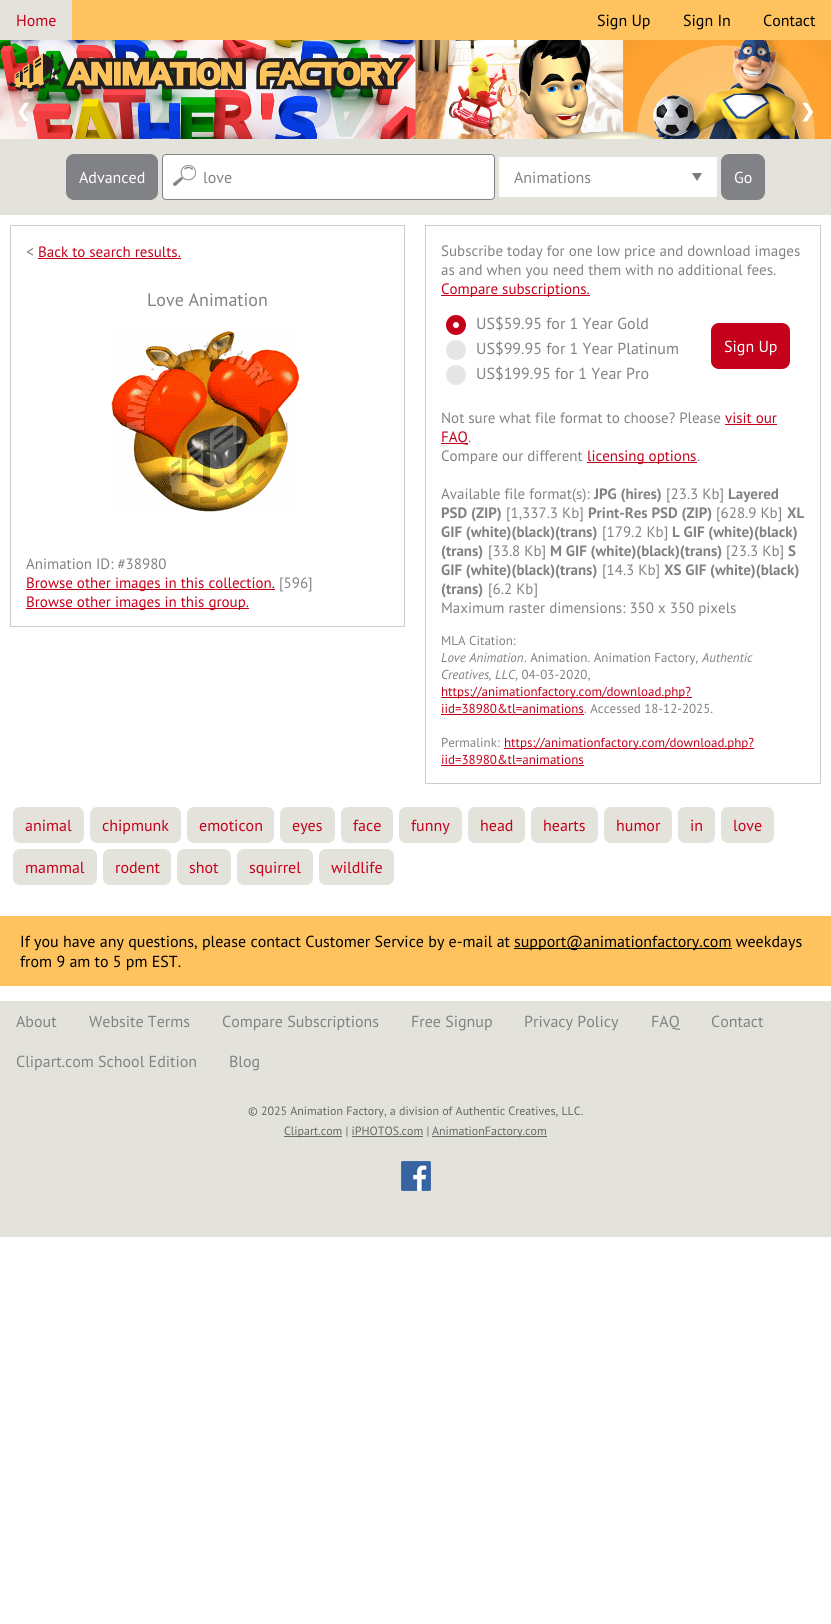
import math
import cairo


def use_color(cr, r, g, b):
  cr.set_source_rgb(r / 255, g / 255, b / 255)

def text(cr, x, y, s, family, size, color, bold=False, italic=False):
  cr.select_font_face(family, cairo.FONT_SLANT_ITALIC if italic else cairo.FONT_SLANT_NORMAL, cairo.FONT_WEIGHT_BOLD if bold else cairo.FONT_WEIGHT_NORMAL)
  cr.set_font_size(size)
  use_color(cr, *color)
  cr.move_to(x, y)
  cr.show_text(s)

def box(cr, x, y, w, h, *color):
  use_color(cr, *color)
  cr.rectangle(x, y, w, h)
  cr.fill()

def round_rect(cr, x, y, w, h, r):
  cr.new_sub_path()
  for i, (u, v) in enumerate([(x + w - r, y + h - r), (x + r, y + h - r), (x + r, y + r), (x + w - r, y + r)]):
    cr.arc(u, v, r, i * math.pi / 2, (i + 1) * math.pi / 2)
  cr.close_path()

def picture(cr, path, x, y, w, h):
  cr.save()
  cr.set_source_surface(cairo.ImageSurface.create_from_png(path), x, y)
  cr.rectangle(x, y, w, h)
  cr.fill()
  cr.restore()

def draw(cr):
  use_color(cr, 255, 255, 255)
  cr.paint()
  box(cr, 72, 0, 759, 40, 254, 195, 94)
  box(cr, 0, 0, 72, 40, 228, 227, 219)
  picture(cr, "img_01.png", 0, 40, 831, 99)
  box(cr, 0, 139, 831, 76, 228, 227, 219)
  use_color(cr, 129, 130, 133)
  round_rect(cr, 66, 154, 92, 46, 8)
  cr.fill()
  use_color(cr, 255, 255, 255)
  round_rect(cr, 162, 154, 333, 46, 4)
  cr.fill()
  picture(cr, "img_02.png", 173, 165, 23, 21)
  round_rect(cr, 162.5, 154.5, 332, 45, 3.5)
  use_color(cr, 129, 130, 133)
  cr.set_line_width(1)
  cr.stroke()
  box(cr, 499, 157, 218, 40, 255, 255, 255)
  use_color(cr, 123, 123, 123)
  cr.new_path()
  cr.move_to(692, 173)
  cr.line_to(702, 173)
  cr.line_to(697, 181)
  cr.close_path()
  cr.fill()
  use_color(cr, 129, 130, 133)
  round_rect(cr, 721, 154, 44, 46, 8)
  cr.fill()
  cr.rectangle(10.5, 225.5, 394, 401)
  use_color(cr, 204, 204, 204)
  cr.stroke()
  box(cr, 38, 258, 143, 1, 197, 0, 26)
  picture(cr, "img_03.png", 111, 331, 188, 181)
  box(cr, 26, 589, 249, 1, 197, 0, 26)
  box(cr, 26, 608, 223, 1, 197, 0, 26)
  cr.rectangle(425.5, 225.5, 395, 558)
  use_color(cr, 204, 204, 204)
  cr.stroke()
  box(cr, 441, 295, 149, 1, 197, 0, 26)
  cr.arc(456, 325, 10, 0, 2 * math.pi)
  cr.fill()
  use_color(cr, 255, 255, 255)
  cr.arc(456, 325, 3, 0, 2 * math.pi)
  cr.fill()
  use_color(cr, 230, 230, 230)
  cr.arc(456, 350, 10, 0, 2 * math.pi)
  cr.fill()
  cr.arc(456, 375, 10, 0, 2 * math.pi)
  cr.fill()
  use_color(cr, 197, 0, 26)
  round_rect(cr, 711, 323, 79, 46, 8)
  cr.fill()
  box(cr, 725, 424, 52, 1, 197, 0, 26)
  box(cr, 441, 443, 27, 1, 197, 0, 26)
  box(cr, 587, 462, 110, 1, 197, 0, 26)
  box(cr, 441, 697, 251, 1, 197, 0, 26)
  box(cr, 441, 714, 143, 1, 197, 0, 26)
  box(cr, 504, 748, 250, 1, 197, 0, 26)
  box(cr, 441, 765, 143, 1, 197, 0, 26)
  use_color(cr, 228, 227, 219)
  round_rect(cr, 13, 807, 71, 36, 7)
  cr.fill()
  round_rect(cr, 90, 807, 91, 36, 7)
  cr.fill()
  round_rect(cr, 187, 807, 87, 36, 7)
  cr.fill()
  round_rect(cr, 280, 807, 55, 36, 7)
  cr.fill()
  round_rect(cr, 341, 807, 52, 36, 7)
  cr.fill()
  round_rect(cr, 399, 807, 63, 36, 7)
  cr.fill()
  round_rect(cr, 468, 807, 57, 36, 7)
  cr.fill()
  round_rect(cr, 531, 807, 67, 36, 7)
  cr.fill()
  round_rect(cr, 604, 807, 68, 36, 7)
  cr.fill()
  round_rect(cr, 678, 807, 37, 36, 7)
  cr.fill()
  round_rect(cr, 721, 807, 53, 36, 7)
  cr.fill()
  round_rect(cr, 13, 849, 84, 36, 7)
  cr.fill()
  round_rect(cr, 103, 849, 68, 36, 7)
  cr.fill()
  round_rect(cr, 177, 849, 54, 36, 7)
  cr.fill()
  round_rect(cr, 237, 849, 76, 36, 7)
  cr.fill()
  round_rect(cr, 319, 849, 75, 36, 7)
  cr.fill()
  box(cr, 0, 916, 831, 70, 254, 195, 94)
  box(cr, 514, 948, 218, 1, 0, 0, 0)
  box(cr, 0, 1001, 831, 236, 228, 227, 219)
  box(cr, 284, 1136, 58, 1, 102, 102, 102)
  box(cr, 432, 1136, 115, 1, 102, 102, 102)
  box(cr, 352, 1136, 71, 1, 102, 102, 102)
  picture(cr, "img_04.png", 401, 1161, 30, 30)
  text(cr, 16, 26, "Home", "PT Sans", 16, (197, 0, 26))
  text(cr, 597, 26, "Sign Up", "PT Sans", 16, (0, 0, 0))
  text(cr, 683, 26, "Sign In", "PT Sans", 16, (0, 0, 0))
  text(cr, 763, 26, "Contact", "PT Sans", 16, (0, 0, 0))
  text(cr, 16, 117, "❮", "DejaVu Sans", 18, (255, 255, 255), bold=True)
  text(cr, 800, 117, "❯", "DejaVu Sans", 18, (255, 255, 255), bold=True)
  text(cr, 79, 183, "Advanced", "PT Sans", 16, (255, 255, 255))
  text(cr, 203, 183, "love", "PT Sans", 16, (129, 130, 133))
  text(cr, 514, 183, "Animations", "PT Sans", 16, (129, 130, 133))
  text(cr, 734, 183, "Go", "PT Sans", 16, (255, 255, 255))
  text(cr, 26, 257, "<", "PT Sans", 16, (129, 130, 133))
  text(cr, 38, 257, "Back to search results.", "PT Sans", 15, (197, 0, 26))
  text(cr, 147, 306, "Love Animation", "PT Sans", 18, (129, 130, 133))
  text(cr, 26, 569, "Animation ID: #38980", "PT Sans", 15, (129, 130, 133))
  text(cr, 26, 588, "Browse other images in this collection.", "PT Sans", 15, (197, 0, 26))
  text(cr, 279, 588, "[596]", "PT Sans", 15, (129, 130, 133))
  text(cr, 26, 607, "Browse other images in this group.", "PT Sans", 15, (197, 0, 26))
  text(cr, 441, 256, "Subscribe today for one low price and download images", "PT Sans", 15, (129, 130, 133))
  text(cr, 441, 275, "as and when you need them with no additional fees.", "PT Sans", 15, (129, 130, 133))
  text(cr, 441, 294, "Compare subscriptions.", "PT Sans", 15, (197, 0, 26))
  text(cr, 476, 329, "US$59.95 for 1 Year Gold", "PT Sans", 16, (129, 130, 133))
  text(cr, 476, 354, "US$99.95 for 1 Year Platinum", "PT Sans", 16, (129, 130, 133))
  text(cr, 476, 379, "US$199.95 for 1 Year Pro", "PT Sans", 16, (129, 130, 133))
  text(cr, 724, 352, "Sign Up", "PT Sans", 16, (255, 255, 255))
  text(cr, 441, 423, "Not sure what file format to choose? Please", "PT Sans", 15, (129, 130, 133))
  text(cr, 725, 423, "visit our", "PT Sans", 15, (197, 0, 26))
  text(cr, 441, 442, "FAQ", "PT Sans", 15, (197, 0, 26))
  text(cr, 468, 442, ".", "PT Sans", 15, (129, 130, 133))
  text(cr, 441, 461, "Compare our different", "PT Sans", 15, (129, 130, 133))
  text(cr, 587, 461, "licensing options", "PT Sans", 15, (197, 0, 26))
  text(cr, 697, 461, ".", "PT Sans", 15, (129, 130, 133))
  text(cr, 441, 499, "Available file format(s):", "PT Sans", 15, (129, 130, 133))
  text(cr, 594, 499, "JPG (hires)", "PT Sans", 15, (129, 130, 133), bold=True)
  text(cr, 666, 499, "[23.3 Kb]", "PT Sans", 15, (129, 130, 133))
  text(cr, 728, 499, "Layered", "PT Sans", 15, (129, 130, 133), bold=True)
  text(cr, 441, 518, "PSD (ZIP)", "PT Sans", 15, (129, 130, 133), bold=True)
  text(cr, 506, 518, "[1,337.3 Kb]", "PT Sans", 15, (129, 130, 133))
  text(cr, 588, 518, "Print-Res PSD (ZIP)", "PT Sans", 15, (129, 130, 133), bold=True)
  text(cr, 716, 518, "[628.9 Kb]", "PT Sans", 15, (129, 130, 133))
  text(cr, 787, 518, "XL", "PT Sans", 15, (129, 130, 133), bold=True)
  text(cr, 441, 537, "GIF (white)(black)(trans)", "PT Sans", 15, (129, 130, 133), bold=True)
  text(cr, 602, 537, "[179.2 Kb]", "PT Sans", 15, (129, 130, 133))
  text(cr, 672, 537, "L GIF (white)(black)", "PT Sans", 15, (129, 130, 133), bold=True)
  text(cr, 441, 556, "(trans)", "PT Sans", 15, (129, 130, 133), bold=True)
  text(cr, 488, 556, "[33.8 Kb]", "PT Sans", 15, (129, 130, 133))
  text(cr, 550, 556, "M GIF (white)(black)(trans)", "PT Sans", 15, (129, 130, 133), bold=True)
  text(cr, 726, 556, "[23.3 Kb]", "PT Sans", 15, (129, 130, 133))
  text(cr, 788, 556, "S", "PT Sans", 15, (129, 130, 133), bold=True)
  text(cr, 441, 575, "GIF (white)(black)(trans)", "PT Sans", 15, (129, 130, 133), bold=True)
  text(cr, 602, 575, "[14.3 Kb]", "PT Sans", 15, (129, 130, 133))
  text(cr, 664, 575, "XS GIF (white)(black)", "PT Sans", 15, (129, 130, 133), bold=True)
  text(cr, 441, 594, "(trans)", "PT Sans", 15, (129, 130, 133), bold=True)
  text(cr, 488, 594, "[6.2 Kb]", "PT Sans", 15, (129, 130, 133))
  text(cr, 441, 613, "Maximum raster dimensions: 350 x 350 pixels", "PT Sans", 15, (129, 130, 133))
  text(cr, 441, 645, "MLA Citation:", "PT Sans", 13, (129, 130, 133))
  text(cr, 441, 662, "Love Animation", "PT Sans", 13, (129, 130, 133), italic=True)
  text(cr, 524, 662, ". Animation. Animation Factory,", "PT Sans", 13, (129, 130, 133))
  text(cr, 702, 662, "Authentic", "PT Sans", 13, (129, 130, 133), italic=True)
  text(cr, 441, 679, "Creatives, LLC", "PT Sans", 13, (129, 130, 133), italic=True)
  text(cr, 515, 679, ", 04-03-2020,", "PT Sans", 13, (129, 130, 133))
  text(cr, 441, 696, "https://animationfactory.com/download.php?", "PT Sans", 13, (197, 0, 26))
  text(cr, 441, 713, "iid=38980&tl=animations", "PT Sans", 13, (197, 0, 26))
  text(cr, 584, 713, ". Accessed 18-12-2025.", "PT Sans", 13, (129, 130, 133))
  text(cr, 441, 747, "Permalink:", "PT Sans", 13, (129, 130, 133))
  text(cr, 504, 747, "https://animationfactory.com/download.php?", "PT Sans", 13, (197, 0, 26))
  text(cr, 441, 764, "iid=38980&tl=animations", "PT Sans", 13, (197, 0, 26))
  text(cr, 25, 831, "animal", "PT Sans", 16, (197, 0, 26))
  text(cr, 102, 831, "chipmunk", "PT Sans", 16, (197, 0, 26))
  text(cr, 199, 831, "emoticon", "PT Sans", 16, (197, 0, 26))
  text(cr, 292, 831, "eyes", "PT Sans", 16, (197, 0, 26))
  text(cr, 353, 831, "face", "PT Sans", 16, (197, 0, 26))
  text(cr, 411, 831, "funny", "PT Sans", 16, (197, 0, 26))
  text(cr, 480, 831, "head", "PT Sans", 16, (197, 0, 26))
  text(cr, 543, 831, "hearts", "PT Sans", 16, (197, 0, 26))
  text(cr, 616, 831, "humor", "PT Sans", 16, (197, 0, 26))
  text(cr, 690, 831, "in", "PT Sans", 16, (197, 0, 26))
  text(cr, 733, 831, "love", "PT Sans", 16, (197, 0, 26))
  text(cr, 25, 873, "mammal", "PT Sans", 16, (197, 0, 26))
  text(cr, 115, 873, "rodent", "PT Sans", 16, (197, 0, 26))
  text(cr, 189, 873, "shot", "PT Sans", 16, (197, 0, 26))
  text(cr, 249, 873, "squirrel", "PT Sans", 16, (197, 0, 26))
  text(cr, 331, 873, "wildlife", "PT Sans", 16, (197, 0, 26))
  text(cr, 20, 947, "If you have any questions, please contact Customer Service by e-mail at", "PT Sans", 16, (0, 0, 0))
  text(cr, 514, 947, "support@animationfactory.com weekdays", "PT Sans", 16, (0, 0, 0))
  text(cr, 20, 967, "from 9 am to 5 pm EST.", "PT Sans", 16, (0, 0, 0))
  text(cr, 16, 1027, "About", "PT Sans", 16, (129, 130, 133))
  text(cr, 89, 1027, "Website Terms", "PT Sans", 16, (129, 130, 133))
  text(cr, 222, 1027, "Compare Subscriptions", "PT Sans", 16, (129, 130, 133))
  text(cr, 411, 1027, "Free Signup", "PT Sans", 16, (129, 130, 133))
  text(cr, 524, 1027, "Privacy Policy", "PT Sans", 16, (129, 130, 133))
  text(cr, 651, 1027, "FAQ", "PT Sans", 16, (129, 130, 133))
  text(cr, 711, 1027, "Contact", "PT Sans", 16, (129, 130, 133))
  text(cr, 16, 1067, "Clipart.com School Edition", "PT Sans", 16, (129, 130, 133))
  text(cr, 229, 1067, "Blog", "PT Sans", 16, (129, 130, 133))
  text(cr, 248, 1115, "© 2025 Animation Factory, a division of Authentic Creatives, LLC.", "PT Sans", 12, (102, 102, 102))
  text(cr, 284, 1135, "Clipart.com | iPHOTOS.com |", "PT Sans", 12, (102, 102, 102))
  text(cr, 432, 1135, "AnimationFactory.com", "PT Sans", 12, (102, 102, 102))


surface = cairo.ImageSurface(cairo.FORMAT_RGB24, 831, 1624)
cr = cairo.Context(surface)
options = cairo.FontOptions()
options.set_hint_metrics(cairo.HINT_METRICS_OFF)
options.set_hint_style(cairo.HINT_STYLE_NONE)
cr.set_font_options(options)
cr.set_miter_limit(4)
draw(cr)
surface.write_to_png("out.png")
